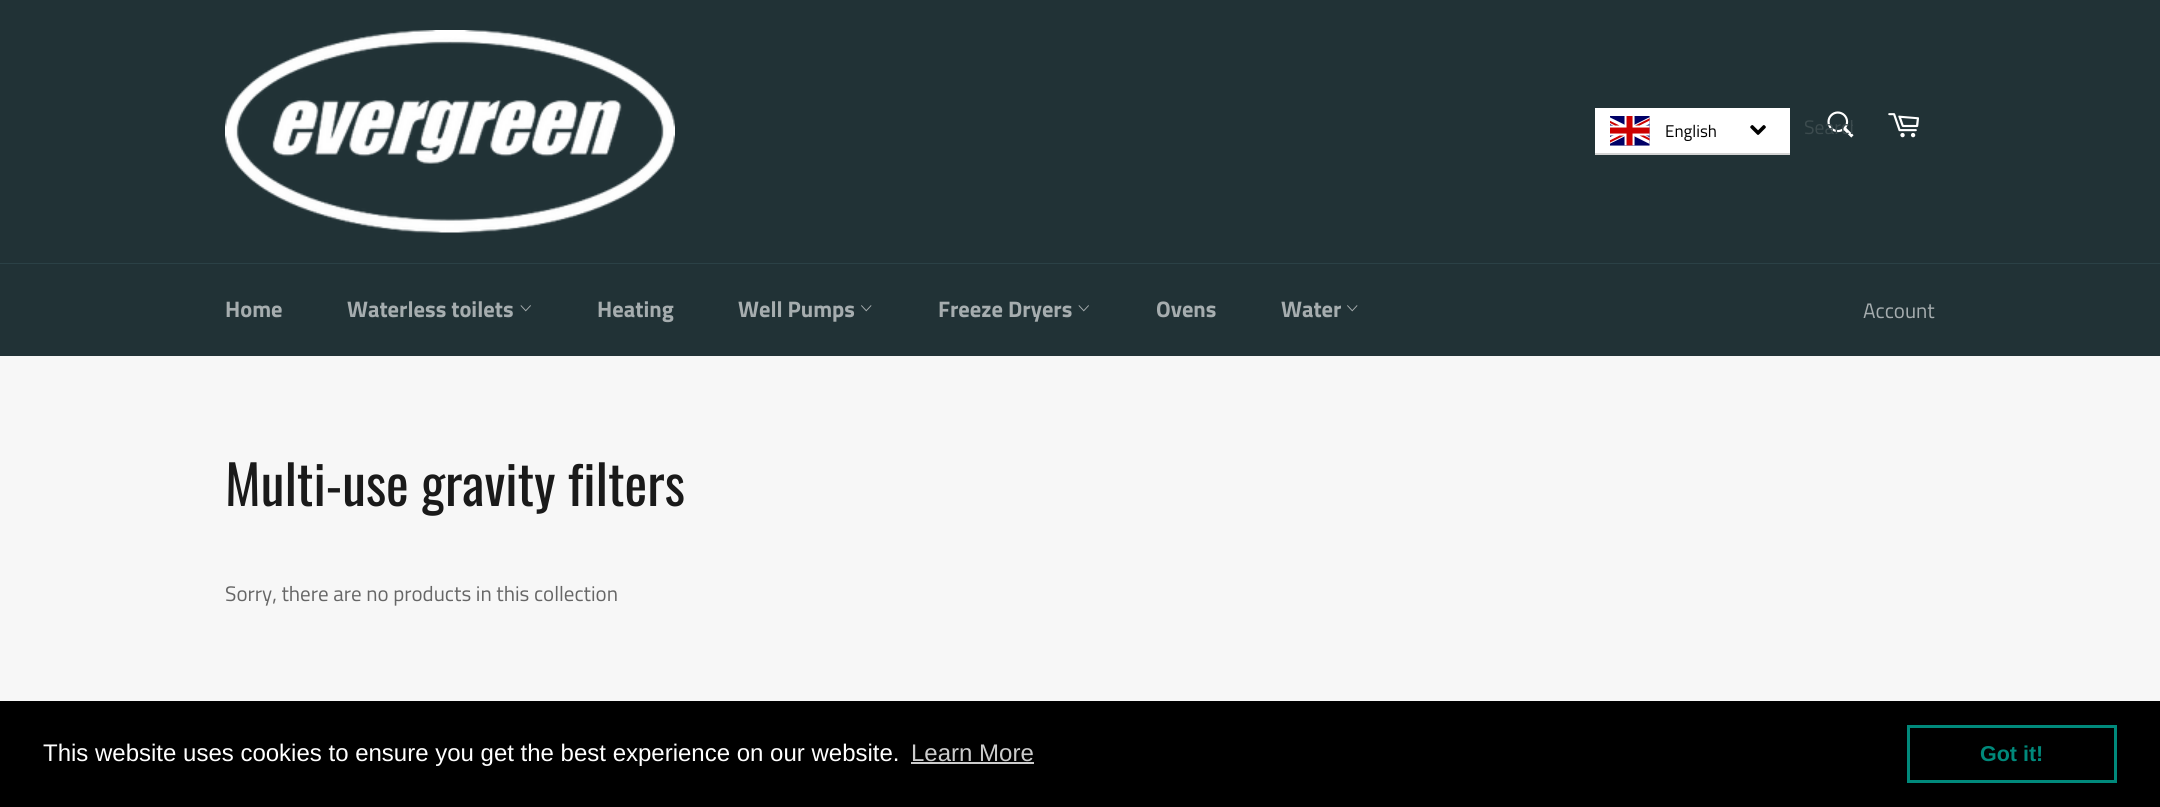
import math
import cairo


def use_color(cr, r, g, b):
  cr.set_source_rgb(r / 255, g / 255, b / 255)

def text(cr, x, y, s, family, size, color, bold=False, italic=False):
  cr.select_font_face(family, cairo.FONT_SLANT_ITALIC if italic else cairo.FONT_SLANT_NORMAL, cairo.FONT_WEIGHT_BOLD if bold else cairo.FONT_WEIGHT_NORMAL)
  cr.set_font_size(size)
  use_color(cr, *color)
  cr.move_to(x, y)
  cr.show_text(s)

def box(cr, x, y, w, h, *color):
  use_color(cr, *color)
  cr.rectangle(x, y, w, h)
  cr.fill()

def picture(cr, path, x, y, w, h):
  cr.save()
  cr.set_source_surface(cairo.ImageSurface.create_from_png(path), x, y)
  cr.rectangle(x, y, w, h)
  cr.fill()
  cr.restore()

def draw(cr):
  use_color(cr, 247, 247, 247)
  cr.paint()
  box(cr, 0, 0, 2160, 263, 33, 50, 54)
  picture(cr, "img_01.png", 225, 30, 450, 203)
  box(cr, 1595, 108, 195, 45, 255, 255, 255)
  picture(cr, "img_02.png", 1610, 116, 40, 30)
  box(cr, 1595, 153, 195, 2, 212, 212, 212)
  picture(cr, "img_03.png", 1750, 125, 16, 10)
  picture(cr, "img_04.png", 1827, 111, 27, 27)
  picture(cr, "img_05.png", 1888, 113, 31, 25)
  box(cr, 0, 263, 2160, 1, 43, 65, 70)
  box(cr, 0, 264, 2160, 92, 33, 50, 54)
  picture(cr, "img_06.png", 520, 305, 11, 7)
  picture(cr, "img_07.png", 861, 305, 11, 7)
  picture(cr, "img_06.png", 1078, 305, 11, 7)
  picture(cr, "img_07.png", 1347, 305, 11, 7)
  box(cr, 0, 701, 2160, 106, 0, 0, 0)
  box(cr, 911, 762, 123, 2, 204, 204, 204)
  cr.rectangle(1908.5, 726.5, 207, 55)
  use_color(cr, 0, 137, 123)
  cr.set_line_width(3)
  cr.stroke()
  text(cr, 1665, 137, "English", "Titillium Web", 17, (0, 0, 0))
  cr.save()
  cr.rectangle(1805, 113, 48, 30)
  cr.clip()
  text(cr, 1804, 134, "Search", "Titillium Web", 19.5, (60, 75, 78))
  cr.restore()
  text(cr, 225, 317, "Home", "Titillium Web", 22.5, (166, 173, 175), bold=True)
  text(cr, 347, 317, "Waterless toilets", "Titillium Web", 22.5, (166, 173, 175), bold=True)
  text(cr, 597, 317, "Heating", "Titillium Web", 22.5, (166, 173, 175), bold=True)
  text(cr, 738, 317, "Well Pumps", "Titillium Web", 22.5, (166, 173, 175), bold=True)
  text(cr, 938, 317, "Freeze Dryers", "Titillium Web", 22.5, (166, 173, 175), bold=True)
  text(cr, 1156, 317, "Ovens", "Titillium Web", 22.5, (166, 173, 175), bold=True)
  text(cr, 1281, 317, "Water", "Titillium Web", 22.5, (166, 173, 175), bold=True)
  text(cr, 1863, 318, "Account", "Titillium Web", 21, (166, 173, 175))
  text(cr, 225, 506, "Multi-use gravity filters", "Oswald", 54, (26, 26, 26))
  text(cr, 225, 601, "Sorry, there are no products in this collection", "Titillium Web", 21, (102, 102, 102))
  text(cr, 43, 761, "This website uses cookies to ensure you get the best experience on our website.", "Liberation Sans", 24, (255, 255, 255))
  text(cr, 911, 761, "Learn More", "Liberation Sans", 24, (204, 204, 204))
  text(cr, 1980, 761, "Got it!", "Liberation Sans", 21.5, (0, 137, 123), bold=True)


surface = cairo.ImageSurface(cairo.FORMAT_RGB24, 2160, 807)
cr = cairo.Context(surface)
options = cairo.FontOptions()
options.set_hint_metrics(cairo.HINT_METRICS_OFF)
options.set_hint_style(cairo.HINT_STYLE_NONE)
cr.set_font_options(options)
cr.set_miter_limit(4)
draw(cr)
surface.write_to_png("out.png")
